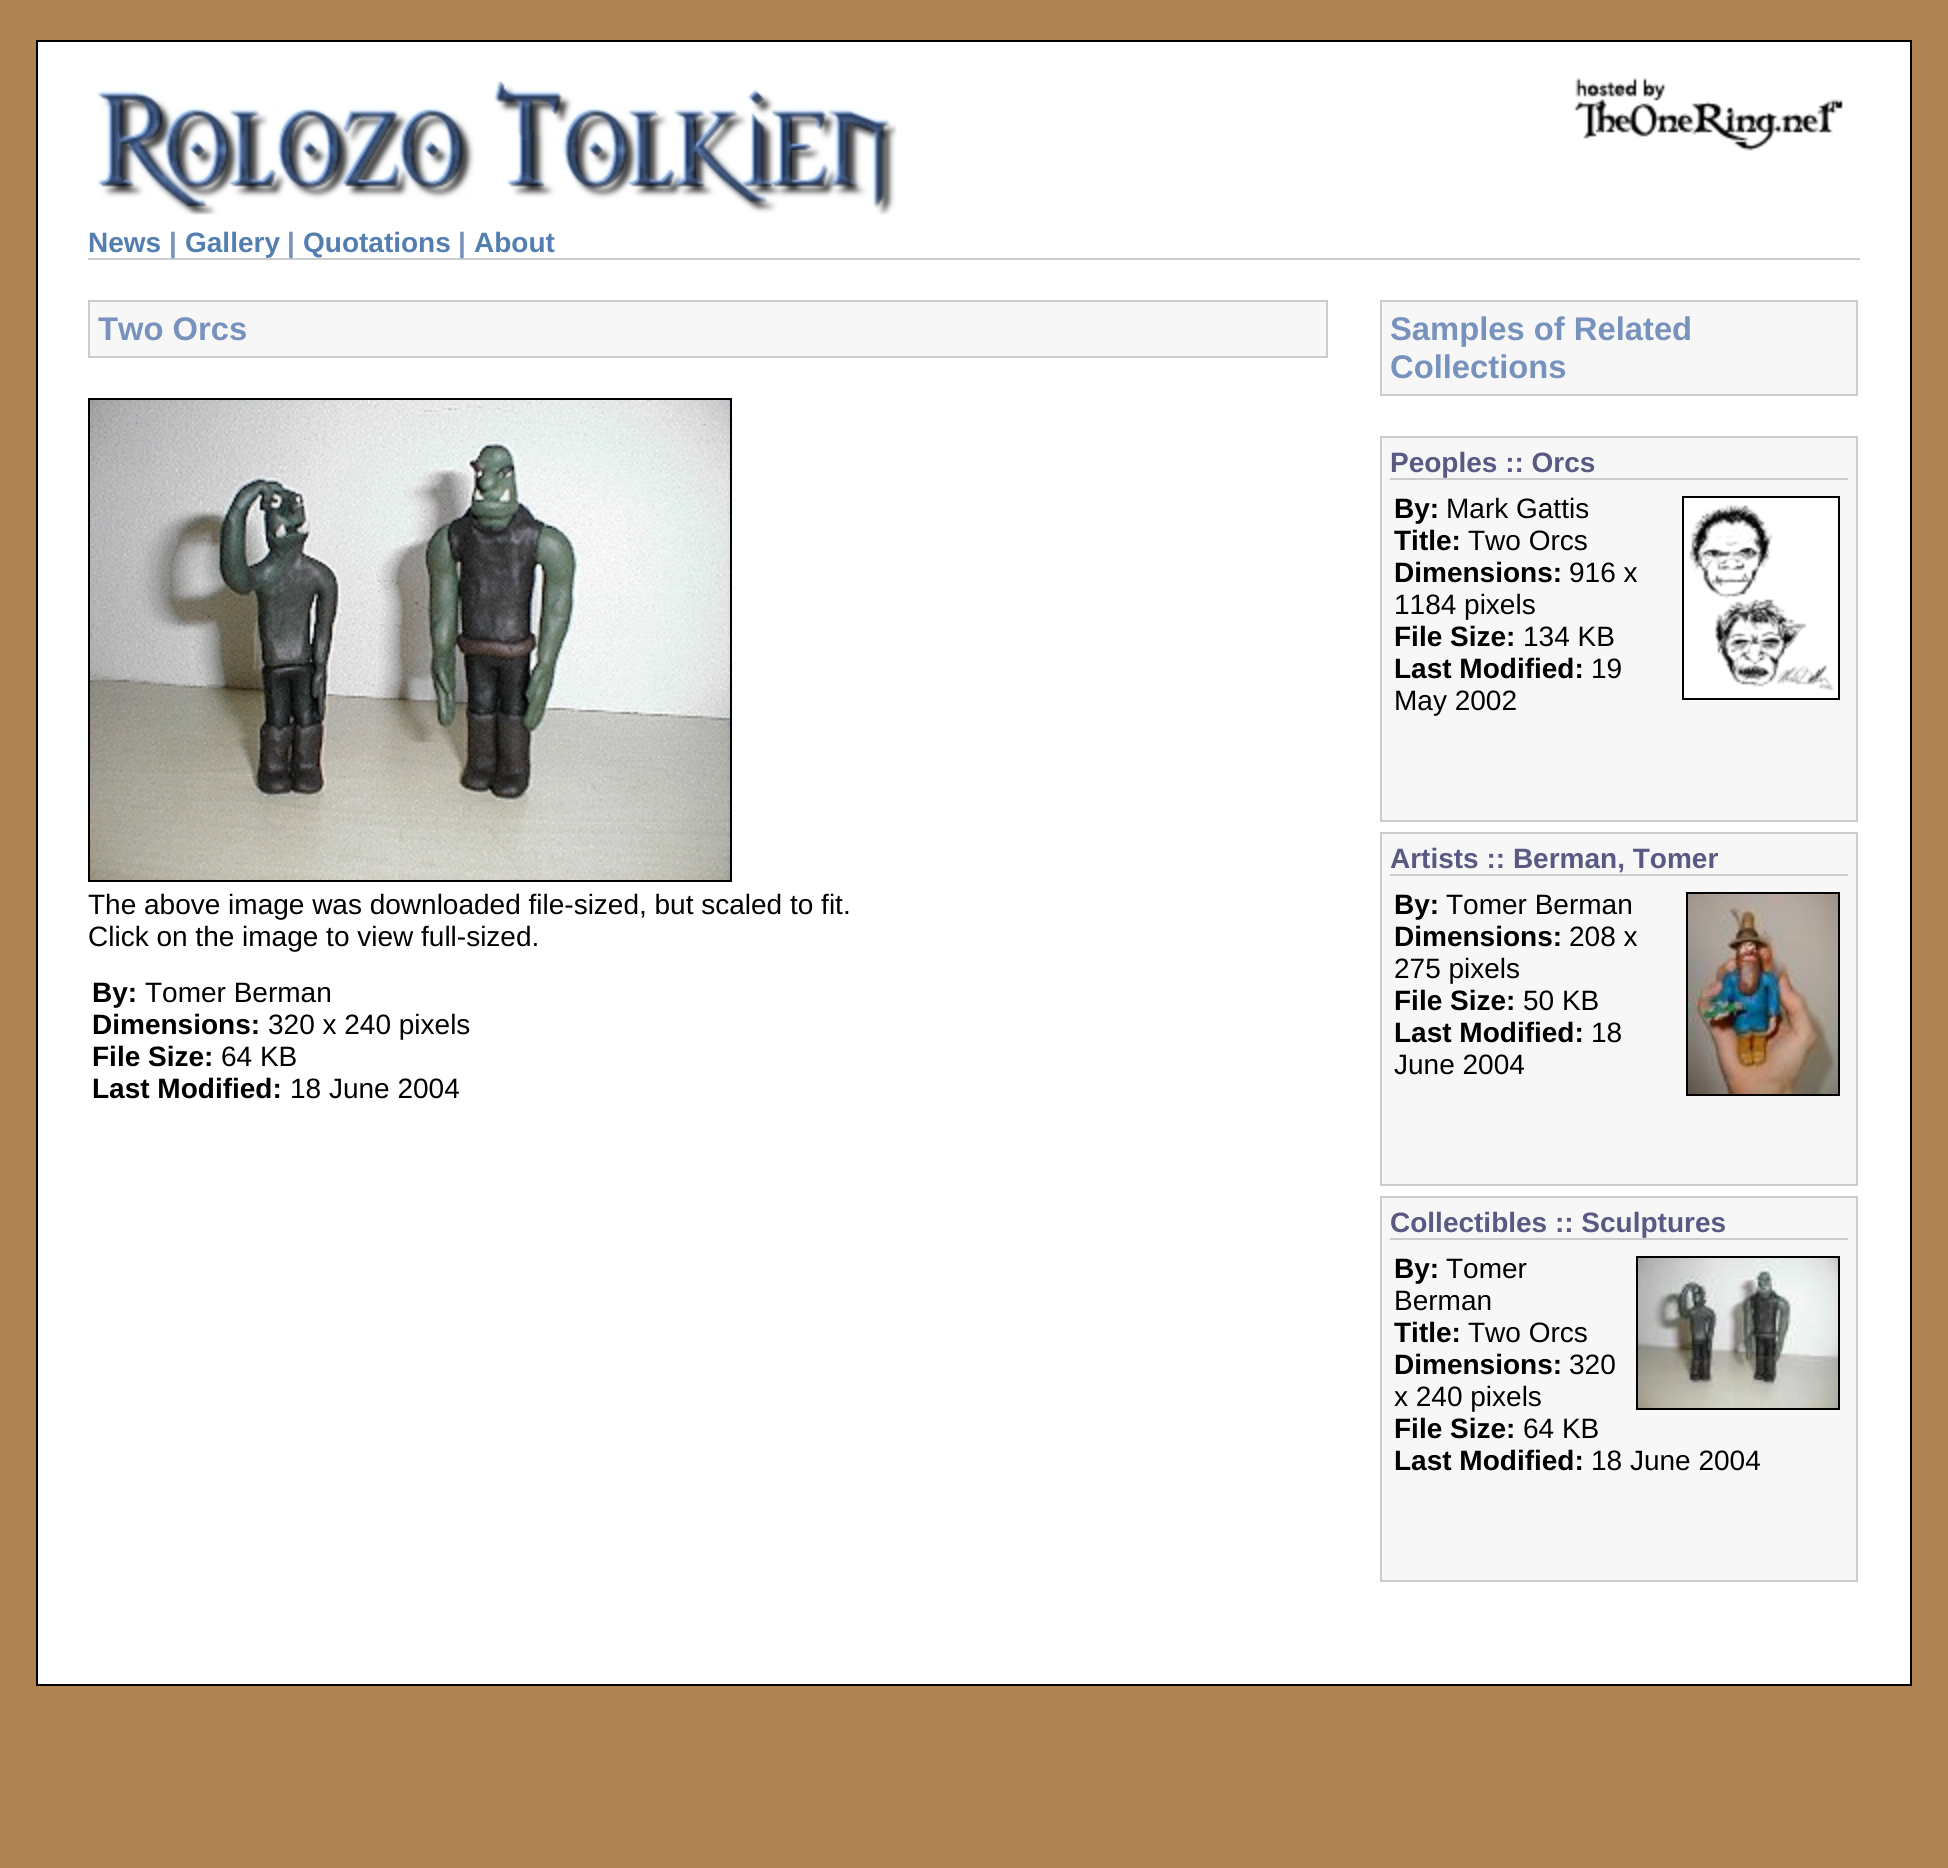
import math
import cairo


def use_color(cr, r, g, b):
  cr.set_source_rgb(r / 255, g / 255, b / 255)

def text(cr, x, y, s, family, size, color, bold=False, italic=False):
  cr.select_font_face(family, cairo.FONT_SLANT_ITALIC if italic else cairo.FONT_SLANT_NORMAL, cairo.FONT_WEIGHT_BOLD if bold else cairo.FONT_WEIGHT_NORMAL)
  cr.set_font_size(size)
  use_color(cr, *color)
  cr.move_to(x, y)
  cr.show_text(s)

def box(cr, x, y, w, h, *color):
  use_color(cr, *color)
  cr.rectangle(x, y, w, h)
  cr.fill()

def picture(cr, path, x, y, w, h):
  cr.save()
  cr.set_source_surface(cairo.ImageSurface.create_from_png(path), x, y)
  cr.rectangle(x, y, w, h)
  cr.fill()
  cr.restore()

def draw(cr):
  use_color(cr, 176, 133, 83)
  cr.paint()
  use_color(cr, 255, 255, 255)
  cr.rectangle(37, 41, 1874, 1644)
  cr.fill_preserve()
  use_color(cr, 0, 0, 0)
  cr.stroke()
  picture(cr, "img_01.png", 97, 80, 800, 135)
  picture(cr, "img_02.png", 1573, 77, 270, 74)
  box(cr, 88, 258, 1772, 2, 204, 204, 204)
  use_color(cr, 247, 247, 247)
  cr.rectangle(89, 301, 1238, 56)
  cr.fill_preserve()
  use_color(cr, 204, 204, 204)
  cr.stroke()
  cr.rectangle(89, 399, 642, 482)
  use_color(cr, 0, 0, 0)
  cr.stroke()
  picture(cr, "img_03.png", 90, 400, 640, 480)
  use_color(cr, 247, 247, 247)
  cr.rectangle(1381, 301, 476, 94)
  cr.fill_preserve()
  use_color(cr, 204, 204, 204)
  cr.stroke()
  use_color(cr, 247, 247, 247)
  cr.rectangle(1381, 437, 476, 384)
  cr.fill_preserve()
  use_color(cr, 204, 204, 204)
  cr.stroke()
  box(cr, 1390, 478, 458, 2, 204, 204, 204)
  cr.rectangle(1683, 497, 156, 202)
  use_color(cr, 0, 0, 0)
  cr.stroke()
  picture(cr, "img_04.png", 1684, 498, 154, 200)
  use_color(cr, 247, 247, 247)
  cr.rectangle(1381, 833, 476, 352)
  cr.fill_preserve()
  use_color(cr, 204, 204, 204)
  cr.stroke()
  box(cr, 1390, 874, 458, 2, 204, 204, 204)
  cr.rectangle(1687, 893, 152, 202)
  use_color(cr, 0, 0, 0)
  cr.stroke()
  picture(cr, "img_05.png", 1688, 894, 150, 200)
  use_color(cr, 247, 247, 247)
  cr.rectangle(1381, 1197, 476, 384)
  cr.fill_preserve()
  use_color(cr, 204, 204, 204)
  cr.stroke()
  box(cr, 1390, 1238, 458, 2, 204, 204, 204)
  cr.rectangle(1637, 1257, 202, 152)
  use_color(cr, 0, 0, 0)
  cr.stroke()
  picture(cr, "img_06.png", 1638, 1258, 200, 150)
  text(cr, 88, 252, "News", "Liberation Sans", 28, (83, 126, 176), bold=True)
  text(cr, 169, 252, "|", "Liberation Sans", 28, (119, 146, 188), bold=True)
  text(cr, 185, 252, "Gallery", "Liberation Sans", 28, (83, 126, 176), bold=True)
  text(cr, 287, 252, "|", "Liberation Sans", 28, (119, 146, 188), bold=True)
  text(cr, 303, 252, "Quotations", "Liberation Sans", 28, (83, 126, 176), bold=True)
  text(cr, 458, 252, "|", "Liberation Sans", 28, (119, 146, 188), bold=True)
  text(cr, 474, 252, "About", "Liberation Sans", 28, (83, 126, 176), bold=True)
  text(cr, 98, 340, "Two Orcs", "Liberation Sans", 32.75, (119, 146, 188), bold=True)
  text(cr, 88, 914, "The above image was downloaded file-sized, but scaled to fit.", "Liberation Sans", 28, (0, 0, 0))
  text(cr, 88, 946, "Click on the image to view full-sized.", "Liberation Sans", 28, (0, 0, 0))
  text(cr, 92, 1002, "By:", "Liberation Sans", 28, (0, 0, 0), bold=True)
  text(cr, 145, 1002, "Tomer Berman", "Liberation Sans", 28, (0, 0, 0))
  text(cr, 92, 1034, "Dimensions:", "Liberation Sans", 28, (0, 0, 0), bold=True)
  text(cr, 268, 1034, "320 x 240 pixels", "Liberation Sans", 28, (0, 0, 0))
  text(cr, 92, 1066, "File Size:", "Liberation Sans", 28, (0, 0, 0), bold=True)
  text(cr, 221, 1066, "64 KB", "Liberation Sans", 28, (0, 0, 0))
  text(cr, 92, 1098, "Last Modified:", "Liberation Sans", 28, (0, 0, 0), bold=True)
  text(cr, 290, 1098, "18 June 2004", "Liberation Sans", 28, (0, 0, 0))
  text(cr, 1390, 340, "Samples of Related", "Liberation Sans", 32.75, (119, 146, 188), bold=True)
  text(cr, 1390, 378, "Collections", "Liberation Sans", 32.75, (119, 146, 188), bold=True)
  text(cr, 1390, 472, "Peoples :: Orcs", "Liberation Sans", 28, (89, 89, 131), bold=True)
  text(cr, 1394, 518, "By:", "Liberation Sans", 28, (0, 0, 0), bold=True)
  text(cr, 1446, 518, "Mark Gattis", "Liberation Sans", 28, (0, 0, 0))
  text(cr, 1394, 550, "Title:", "Liberation Sans", 28, (0, 0, 0), bold=True)
  text(cr, 1468, 550, "Two Orcs", "Liberation Sans", 28, (0, 0, 0))
  text(cr, 1394, 582, "Dimensions:", "Liberation Sans", 28, (0, 0, 0), bold=True)
  text(cr, 1569, 582, "916 x", "Liberation Sans", 28, (0, 0, 0))
  text(cr, 1394, 614, "1184 pixels", "Liberation Sans", 28, (0, 0, 0))
  text(cr, 1394, 646, "File Size:", "Liberation Sans", 28, (0, 0, 0), bold=True)
  text(cr, 1523, 646, "134 KB", "Liberation Sans", 28, (0, 0, 0))
  text(cr, 1394, 678, "Last Modified:", "Liberation Sans", 28, (0, 0, 0), bold=True)
  text(cr, 1591, 678, "19", "Liberation Sans", 28, (0, 0, 0))
  text(cr, 1394, 710, "May 2002", "Liberation Sans", 28, (0, 0, 0))
  text(cr, 1390, 868, "Artists :: Berman, Tomer", "Liberation Sans", 28, (89, 89, 131), bold=True)
  text(cr, 1394, 914, "By:", "Liberation Sans", 28, (0, 0, 0), bold=True)
  text(cr, 1446, 914, "Tomer Berman", "Liberation Sans", 28, (0, 0, 0))
  text(cr, 1394, 946, "Dimensions:", "Liberation Sans", 28, (0, 0, 0), bold=True)
  text(cr, 1569, 946, "208 x", "Liberation Sans", 28, (0, 0, 0))
  text(cr, 1394, 978, "275 pixels", "Liberation Sans", 28, (0, 0, 0))
  text(cr, 1394, 1010, "File Size:", "Liberation Sans", 28, (0, 0, 0), bold=True)
  text(cr, 1523, 1010, "50 KB", "Liberation Sans", 28, (0, 0, 0))
  text(cr, 1394, 1042, "Last Modified:", "Liberation Sans", 28, (0, 0, 0), bold=True)
  text(cr, 1591, 1042, "18", "Liberation Sans", 28, (0, 0, 0))
  text(cr, 1394, 1074, "June 2004", "Liberation Sans", 28, (0, 0, 0))
  text(cr, 1390, 1232, "Collectibles :: Sculptures", "Liberation Sans", 28, (89, 89, 131), bold=True)
  text(cr, 1394, 1278, "By:", "Liberation Sans", 28, (0, 0, 0), bold=True)
  text(cr, 1446, 1278, "Tomer", "Liberation Sans", 28, (0, 0, 0))
  text(cr, 1394, 1310, "Berman", "Liberation Sans", 28, (0, 0, 0))
  text(cr, 1394, 1342, "Title:", "Liberation Sans", 28, (0, 0, 0), bold=True)
  text(cr, 1468, 1342, "Two Orcs", "Liberation Sans", 28, (0, 0, 0))
  text(cr, 1394, 1374, "Dimensions:", "Liberation Sans", 28, (0, 0, 0), bold=True)
  text(cr, 1569, 1374, "320", "Liberation Sans", 28, (0, 0, 0))
  text(cr, 1394, 1406, "x 240 pixels", "Liberation Sans", 28, (0, 0, 0))
  text(cr, 1394, 1438, "File Size:", "Liberation Sans", 28, (0, 0, 0), bold=True)
  text(cr, 1523, 1438, "64 KB", "Liberation Sans", 28, (0, 0, 0))
  text(cr, 1394, 1470, "Last Modified:", "Liberation Sans", 28, (0, 0, 0), bold=True)
  text(cr, 1591, 1470, "18 June 2004", "Liberation Sans", 28, (0, 0, 0))


surface = cairo.ImageSurface(cairo.FORMAT_RGB24, 1948, 1868)
cr = cairo.Context(surface)
options = cairo.FontOptions()
options.set_hint_metrics(cairo.HINT_METRICS_OFF)
options.set_hint_style(cairo.HINT_STYLE_NONE)
cr.set_font_options(options)
cr.set_miter_limit(4)
draw(cr)
surface.write_to_png("out.png")
